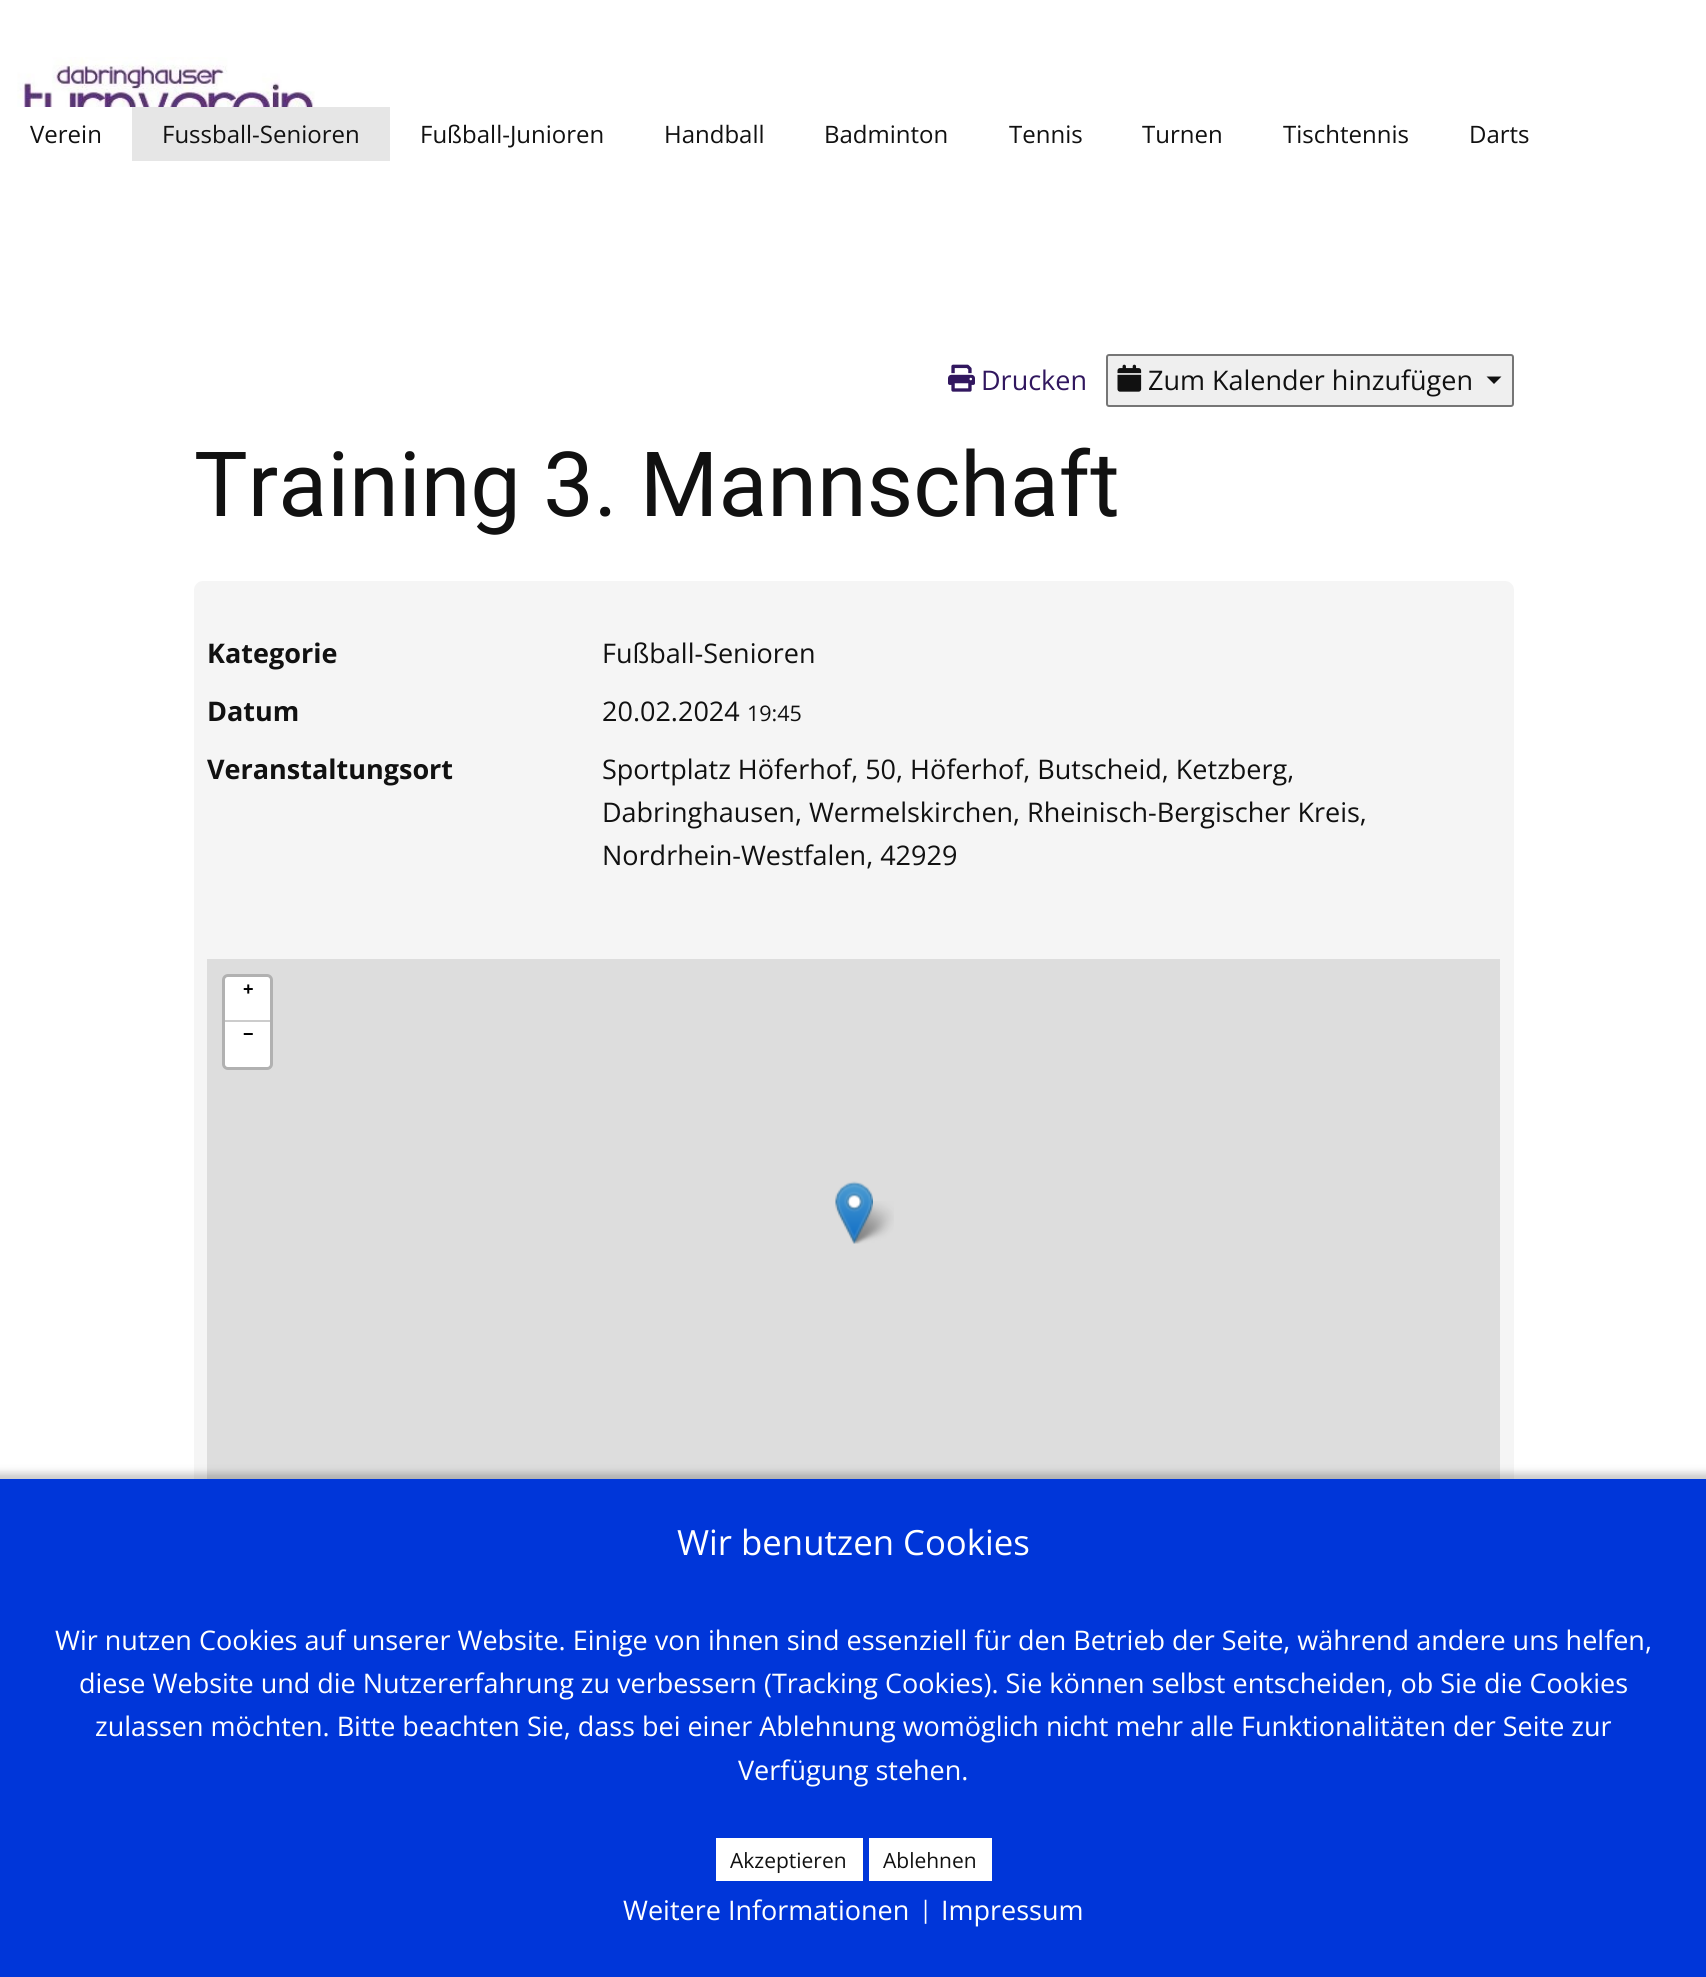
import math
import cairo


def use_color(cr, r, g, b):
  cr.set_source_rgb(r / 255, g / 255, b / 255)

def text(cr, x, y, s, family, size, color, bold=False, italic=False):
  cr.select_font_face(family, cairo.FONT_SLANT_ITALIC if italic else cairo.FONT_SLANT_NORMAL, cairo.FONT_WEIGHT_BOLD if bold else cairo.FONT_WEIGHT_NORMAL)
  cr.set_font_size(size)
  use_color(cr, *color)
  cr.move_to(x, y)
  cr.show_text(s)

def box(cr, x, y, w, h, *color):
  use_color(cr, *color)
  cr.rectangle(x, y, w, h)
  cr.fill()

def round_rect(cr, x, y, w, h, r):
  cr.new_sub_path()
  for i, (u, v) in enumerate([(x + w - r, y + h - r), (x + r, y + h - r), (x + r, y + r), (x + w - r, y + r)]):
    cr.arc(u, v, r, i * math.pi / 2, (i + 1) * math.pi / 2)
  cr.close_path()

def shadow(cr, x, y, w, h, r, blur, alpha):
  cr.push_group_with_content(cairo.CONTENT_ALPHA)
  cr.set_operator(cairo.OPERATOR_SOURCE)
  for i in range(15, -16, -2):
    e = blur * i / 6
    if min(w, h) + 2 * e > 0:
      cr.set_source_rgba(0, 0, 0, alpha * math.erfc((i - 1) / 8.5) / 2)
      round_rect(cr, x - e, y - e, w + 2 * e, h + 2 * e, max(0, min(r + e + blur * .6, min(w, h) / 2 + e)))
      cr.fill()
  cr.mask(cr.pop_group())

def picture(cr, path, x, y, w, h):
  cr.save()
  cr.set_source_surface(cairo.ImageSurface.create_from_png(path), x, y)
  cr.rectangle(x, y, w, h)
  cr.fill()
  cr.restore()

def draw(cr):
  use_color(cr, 255, 255, 255)
  cr.paint()
  picture(cr, "img_01.png", 17, 57, 298, 50)
  box(cr, 132, 107, 258, 54, 230, 230, 230)
  picture(cr, "img_02.png", 948, 364, 27, 28)
  use_color(cr, 239, 239, 239)
  round_rect(cr, 1107, 355, 406, 51, 2)
  cr.fill_preserve()
  use_color(cr, 118, 118, 118)
  cr.stroke()
  picture(cr, "img_03.png", 1117, 364, 25, 28)
  use_color(cr, 17, 17, 17)
  cr.new_path()
  cr.move_to(1486.5, 376.5)
  cr.line_to(1501.5, 376.5)
  cr.line_to(1494, 384)
  cr.close_path()
  cr.fill()
  use_color(cr, 245, 245, 245)
  round_rect(cr, 194, 581, 1320, 1197, 9)
  cr.fill()
  box(cr, 207, 959, 1293, 520, 221, 221, 221)
  round_rect(cr, 223.5, 975.5, 48, 93, 4.5)
  use_color(cr, 177, 177, 177)
  cr.set_line_width(3)
  cr.stroke()
  use_color(cr, 255, 255, 255)
  cr.new_path()
  cr.move_to(228, 977)
  cr.line_to(267, 977)
  cr.curve_to(268.5, 977, 270, 978.5, 270, 980)
  cr.line_to(270, 1022)
  cr.line_to(225, 1022)
  cr.line_to(225, 980)
  cr.curve_to(225, 978.5, 226.5, 977, 228, 977)
  cr.close_path()
  cr.fill()
  box(cr, 225, 1020, 45, 2, 204, 204, 204)
  use_color(cr, 255, 255, 255)
  cr.new_path()
  cr.move_to(225, 1022)
  cr.line_to(270, 1022)
  cr.line_to(270, 1064)
  cr.curve_to(270, 1065.5, 268.5, 1067, 267, 1067)
  cr.line_to(228, 1067)
  cr.curve_to(226.5, 1067, 225, 1065.5, 225, 1064)
  cr.close_path()
  cr.fill()
  picture(cr, "img_05.png", 849, 1201, 45, 43)
  picture(cr, "img_04.png", 835, 1181, 38, 63)
  use_color(cr, 0, 0, 0)
  shadow(cr, -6, 1473, 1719, 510, 0, 4, 0.21)
  box(cr, 0, 1479, 1706, 498, 0, 54, 217)
  box(cr, 716, 1838, 147, 43, 255, 255, 255)
  box(cr, 869, 1838, 123, 43, 255, 255, 255)
  text(cr, 30, 143, "Verein", "Open Sans", 24, (17, 17, 17))
  text(cr, 162, 143, "Fussball-Senioren", "Open Sans", 24, (17, 17, 17))
  text(cr, 420, 143, "Fußball-Junioren", "Open Sans", 24, (17, 17, 17))
  text(cr, 664, 143, "Handball", "Open Sans", 24, (17, 17, 17))
  text(cr, 824, 143, "Badminton", "Open Sans", 24, (17, 17, 17))
  text(cr, 1009, 143, "Tennis", "Open Sans", 24, (17, 17, 17))
  text(cr, 1142, 143, "Turnen", "Open Sans", 24, (17, 17, 17))
  text(cr, 1283, 143, "Tischtennis", "Open Sans", 24, (17, 17, 17))
  text(cr, 1469, 143, "Darts", "Open Sans", 24, (17, 17, 17))
  text(cr, 981, 390, "Drucken", "Open Sans", 27, (49, 23, 95))
  text(cr, 1148, 390, "Zum Kalender hinzufügen", "Open Sans", 27, (17, 17, 17))
  text(cr, 194, 516, "Training 3. Mannschaft", "Roboto", 90, (17, 17, 17))
  text(cr, 207, 663, "Kategorie", "Open Sans", 27, (17, 17, 17), bold=True)
  text(cr, 602, 663, "Fußball-Senioren", "Open Sans", 27, (17, 17, 17))
  text(cr, 207, 721, "Datum", "Open Sans", 27, (17, 17, 17), bold=True)
  text(cr, 602, 721, "20.02.2024", "Open Sans", 27, (17, 17, 17))
  text(cr, 747, 721, "19:45", "Open Sans", 21.5, (17, 17, 17))
  text(cr, 207, 779, "Veranstaltungsort", "Open Sans", 27, (17, 17, 17), bold=True)
  text(cr, 602, 779, "Sportplatz Höferhof, 50, Höferhof, Butscheid, Ketzberg,", "Open Sans", 27, (17, 17, 17))
  text(cr, 602, 822, "Dabringhausen, Wermelskirchen, Rheinisch-Bergischer Kreis,", "Open Sans", 27, (17, 17, 17))
  text(cr, 602, 865, "Nordrhein-Westfalen, 42929", "Open Sans", 27, (17, 17, 17))
  text(cr, 243, 995, "+", "Liberation Sans", 18, (0, 0, 0), bold=True)
  text(cr, 243, 1040, "−", "Liberation Sans", 18, (0, 0, 0), bold=True)
  text(cr, 677, 1555, "Wir benutzen Cookies", "Open Sans", 34.75, (255, 255, 255))
  text(cr, 55, 1650, "Wir nutzen Cookies auf unserer Website. Einige von ihnen sind essenziell für den Betrieb der Seite, während andere uns helfen,", "Open Sans", 27, (255, 255, 255))
  text(cr, 79, 1693, "diese Website und die Nutzererfahrung zu verbessern (Tracking Cookies). Sie können selbst entscheiden, ob Sie die Cookies", "Open Sans", 27, (255, 255, 255))
  text(cr, 95, 1736, "zulassen möchten. Bitte beachten Sie, dass bei einer Ablehnung womöglich nicht mehr alle Funktionalitäten der Seite zur", "Open Sans", 27, (255, 255, 255))
  text(cr, 738, 1780, "Verfügung stehen.", "Open Sans", 27, (255, 255, 255))
  text(cr, 730, 1868, "Akzeptieren", "Open Sans", 21, (17, 17, 17))
  text(cr, 883, 1868, "Ablehnen", "Open Sans", 21, (17, 17, 17))
  text(cr, 623, 1920, "Weitere Informationen", "Open Sans", 27, (255, 255, 255))
  text(cr, 919, 1918, "|", "Open Sans", 24, (255, 255, 255))
  text(cr, 941, 1920, "Impressum", "Open Sans", 27, (255, 255, 255))


surface = cairo.ImageSurface(cairo.FORMAT_RGB24, 1706, 1977)
cr = cairo.Context(surface)
options = cairo.FontOptions()
options.set_hint_metrics(cairo.HINT_METRICS_OFF)
options.set_hint_style(cairo.HINT_STYLE_NONE)
cr.set_font_options(options)
cr.set_miter_limit(4)
draw(cr)
surface.write_to_png("out.png")
